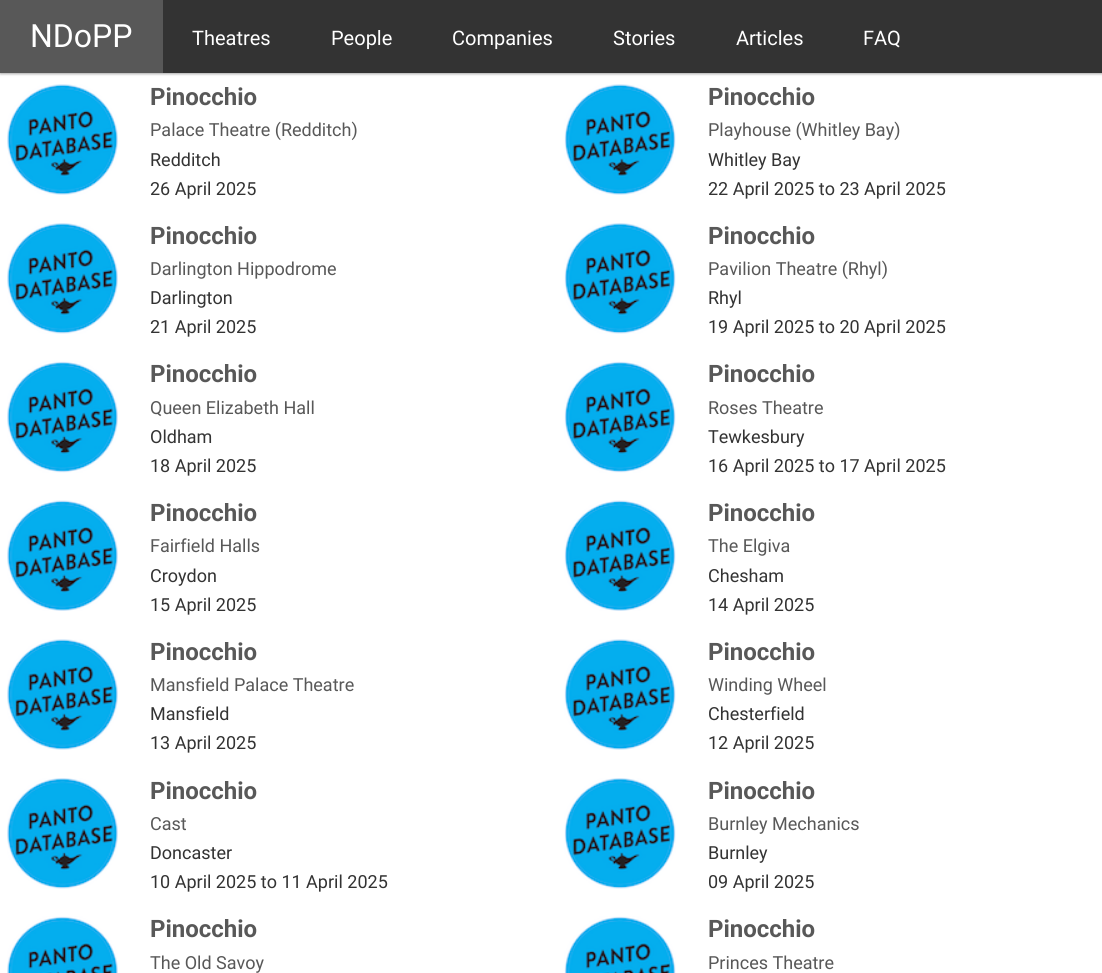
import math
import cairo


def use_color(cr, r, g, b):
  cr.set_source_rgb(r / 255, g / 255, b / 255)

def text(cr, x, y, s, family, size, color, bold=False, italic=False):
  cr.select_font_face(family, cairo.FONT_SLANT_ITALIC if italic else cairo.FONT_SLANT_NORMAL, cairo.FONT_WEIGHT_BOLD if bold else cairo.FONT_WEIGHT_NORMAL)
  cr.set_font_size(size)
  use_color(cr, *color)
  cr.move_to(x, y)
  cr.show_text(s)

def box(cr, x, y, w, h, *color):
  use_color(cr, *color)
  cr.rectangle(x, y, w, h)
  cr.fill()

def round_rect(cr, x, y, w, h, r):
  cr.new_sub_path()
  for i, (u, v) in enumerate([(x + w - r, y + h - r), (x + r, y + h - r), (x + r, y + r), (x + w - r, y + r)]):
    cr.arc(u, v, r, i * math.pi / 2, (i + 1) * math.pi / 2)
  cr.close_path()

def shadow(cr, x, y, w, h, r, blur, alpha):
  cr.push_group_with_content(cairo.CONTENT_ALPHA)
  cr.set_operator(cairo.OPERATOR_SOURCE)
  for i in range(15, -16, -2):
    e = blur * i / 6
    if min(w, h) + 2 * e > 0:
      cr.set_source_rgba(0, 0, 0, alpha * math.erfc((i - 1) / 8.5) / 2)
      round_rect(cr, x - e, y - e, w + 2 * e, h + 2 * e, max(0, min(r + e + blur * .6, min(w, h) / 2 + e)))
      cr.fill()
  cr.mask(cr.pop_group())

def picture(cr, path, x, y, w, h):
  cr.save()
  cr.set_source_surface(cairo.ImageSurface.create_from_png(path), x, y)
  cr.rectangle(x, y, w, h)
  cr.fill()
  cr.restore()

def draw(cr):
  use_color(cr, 255, 255, 255)
  cr.paint()
  use_color(cr, 0, 0, 0)
  shadow(cr, 0, 1, 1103, 73, 0, 1, 0.24)
  shadow(cr, 0, 1, 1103, 73, 0, 2, 0.12)
  box(cr, 163, 0, 939, 73, 51, 51, 51)
  box(cr, 0, 0, 163, 73, 88, 88, 88)
  picture(cr, "img_01.png", 7, 84, 111, 111)
  picture(cr, "img_02.png", 564, 84, 112, 111)
  picture(cr, "img_03.png", 7, 223, 111, 111)
  picture(cr, "img_04.png", 564, 223, 112, 111)
  picture(cr, "img_05.png", 7, 361, 111, 112)
  picture(cr, "img_06.png", 564, 361, 112, 112)
  picture(cr, "img_07.png", 7, 500, 111, 111)
  picture(cr, "img_08.png", 564, 500, 112, 111)
  picture(cr, "img_01.png", 7, 639, 111, 111)
  picture(cr, "img_02.png", 564, 639, 112, 111)
  picture(cr, "img_09.png", 7, 778, 111, 111)
  picture(cr, "img_10.png", 564, 778, 112, 111)
  picture(cr, "img_11.png", 7, 916, 111, 57)
  picture(cr, "img_12.png", 564, 916, 112, 57)
  text(cr, 30, 47, "NDoPP", "Roboto", 32, (255, 255, 255))
  text(cr, 192, 45, "Theatres", "Roboto", 20, (255, 255, 255))
  text(cr, 331, 45, "People", "Roboto", 20, (255, 255, 255))
  text(cr, 452, 45, "Companies", "Roboto", 20, (255, 255, 255))
  text(cr, 613, 45, "Stories", "Roboto", 20, (255, 255, 255))
  text(cr, 736, 45, "Articles", "Roboto", 20, (255, 255, 255))
  text(cr, 863, 45, "FAQ", "Roboto", 20, (255, 255, 255))
  text(cr, 150, 105, "Pinocchio", "Roboto", 24, (88, 88, 88), bold=True)
  text(cr, 150, 136, "Palace Theatre (Redditch)", "Roboto", 18, (88, 88, 88))
  text(cr, 150, 166, "Redditch", "Roboto", 18, (51, 51, 51))
  text(cr, 150, 195, "26 April 2025", "Roboto", 18, (51, 51, 51))
  text(cr, 708, 105, "Pinocchio", "Roboto", 24, (88, 88, 88), bold=True)
  text(cr, 708, 136, "Playhouse (Whitley Bay)", "Roboto", 18, (88, 88, 88))
  text(cr, 708, 166, "Whitley Bay", "Roboto", 18, (51, 51, 51))
  text(cr, 708, 195, "22 April 2025 to 23 April 2025", "Roboto", 18, (51, 51, 51))
  text(cr, 150, 244, "Pinocchio", "Roboto", 24, (88, 88, 88), bold=True)
  text(cr, 150, 275, "Darlington Hippodrome", "Roboto", 18, (88, 88, 88))
  text(cr, 150, 304, "Darlington", "Roboto", 18, (51, 51, 51))
  text(cr, 150, 333, "21 April 2025", "Roboto", 18, (51, 51, 51))
  text(cr, 708, 244, "Pinocchio", "Roboto", 24, (88, 88, 88), bold=True)
  text(cr, 708, 275, "Pavilion Theatre (Rhyl)", "Roboto", 18, (88, 88, 88))
  text(cr, 708, 304, "Rhyl", "Roboto", 18, (51, 51, 51))
  text(cr, 708, 333, "19 April 2025 to 20 April 2025", "Roboto", 18, (51, 51, 51))
  text(cr, 150, 382, "Pinocchio", "Roboto", 24, (88, 88, 88), bold=True)
  text(cr, 150, 414, "Queen Elizabeth Hall", "Roboto", 18, (88, 88, 88))
  text(cr, 150, 443, "Oldham", "Roboto", 18, (51, 51, 51))
  text(cr, 150, 472, "18 April 2025", "Roboto", 18, (51, 51, 51))
  text(cr, 708, 382, "Pinocchio", "Roboto", 24, (88, 88, 88), bold=True)
  text(cr, 708, 414, "Roses Theatre", "Roboto", 18, (88, 88, 88))
  text(cr, 708, 443, "Tewkesbury", "Roboto", 18, (51, 51, 51))
  text(cr, 708, 472, "16 April 2025 to 17 April 2025", "Roboto", 18, (51, 51, 51))
  text(cr, 150, 521, "Pinocchio", "Roboto", 24, (88, 88, 88), bold=True)
  text(cr, 150, 552, "Fairfield Halls", "Roboto", 18, (88, 88, 88))
  text(cr, 150, 582, "Croydon", "Roboto", 18, (51, 51, 51))
  text(cr, 150, 611, "15 April 2025", "Roboto", 18, (51, 51, 51))
  text(cr, 708, 521, "Pinocchio", "Roboto", 24, (88, 88, 88), bold=True)
  text(cr, 708, 552, "The Elgiva", "Roboto", 18, (88, 88, 88))
  text(cr, 708, 582, "Chesham", "Roboto", 18, (51, 51, 51))
  text(cr, 708, 611, "14 April 2025", "Roboto", 18, (51, 51, 51))
  text(cr, 150, 660, "Pinocchio", "Roboto", 24, (88, 88, 88), bold=True)
  text(cr, 150, 691, "Mansfield Palace Theatre", "Roboto", 18, (88, 88, 88))
  text(cr, 150, 720, "Mansfield", "Roboto", 18, (51, 51, 51))
  text(cr, 150, 749, "13 April 2025", "Roboto", 18, (51, 51, 51))
  text(cr, 708, 660, "Pinocchio", "Roboto", 24, (88, 88, 88), bold=True)
  text(cr, 708, 691, "Winding Wheel", "Roboto", 18, (88, 88, 88))
  text(cr, 708, 720, "Chesterfield", "Roboto", 18, (51, 51, 51))
  text(cr, 708, 749, "12 April 2025", "Roboto", 18, (51, 51, 51))
  text(cr, 150, 799, "Pinocchio", "Roboto", 24, (88, 88, 88), bold=True)
  text(cr, 150, 830, "Cast", "Roboto", 18, (88, 88, 88))
  text(cr, 150, 859, "Doncaster", "Roboto", 18, (51, 51, 51))
  text(cr, 150, 888, "10 April 2025 to 11 April 2025", "Roboto", 18, (51, 51, 51))
  text(cr, 708, 799, "Pinocchio", "Roboto", 24, (88, 88, 88), bold=True)
  text(cr, 708, 830, "Burnley Mechanics", "Roboto", 18, (88, 88, 88))
  text(cr, 708, 859, "Burnley", "Roboto", 18, (51, 51, 51))
  text(cr, 708, 888, "09 April 2025", "Roboto", 18, (51, 51, 51))
  text(cr, 150, 937, "Pinocchio", "Roboto", 24, (88, 88, 88), bold=True)
  text(cr, 150, 969, "The Old Savoy", "Roboto", 18, (88, 88, 88))
  text(cr, 708, 937, "Pinocchio", "Roboto", 24, (88, 88, 88), bold=True)
  text(cr, 708, 969, "Princes Theatre", "Roboto", 18, (88, 88, 88))


surface = cairo.ImageSurface(cairo.FORMAT_RGB24, 1102, 973)
cr = cairo.Context(surface)
options = cairo.FontOptions()
options.set_hint_metrics(cairo.HINT_METRICS_OFF)
options.set_hint_style(cairo.HINT_STYLE_NONE)
cr.set_font_options(options)
cr.set_miter_limit(4)
draw(cr)
surface.write_to_png("out.png")
